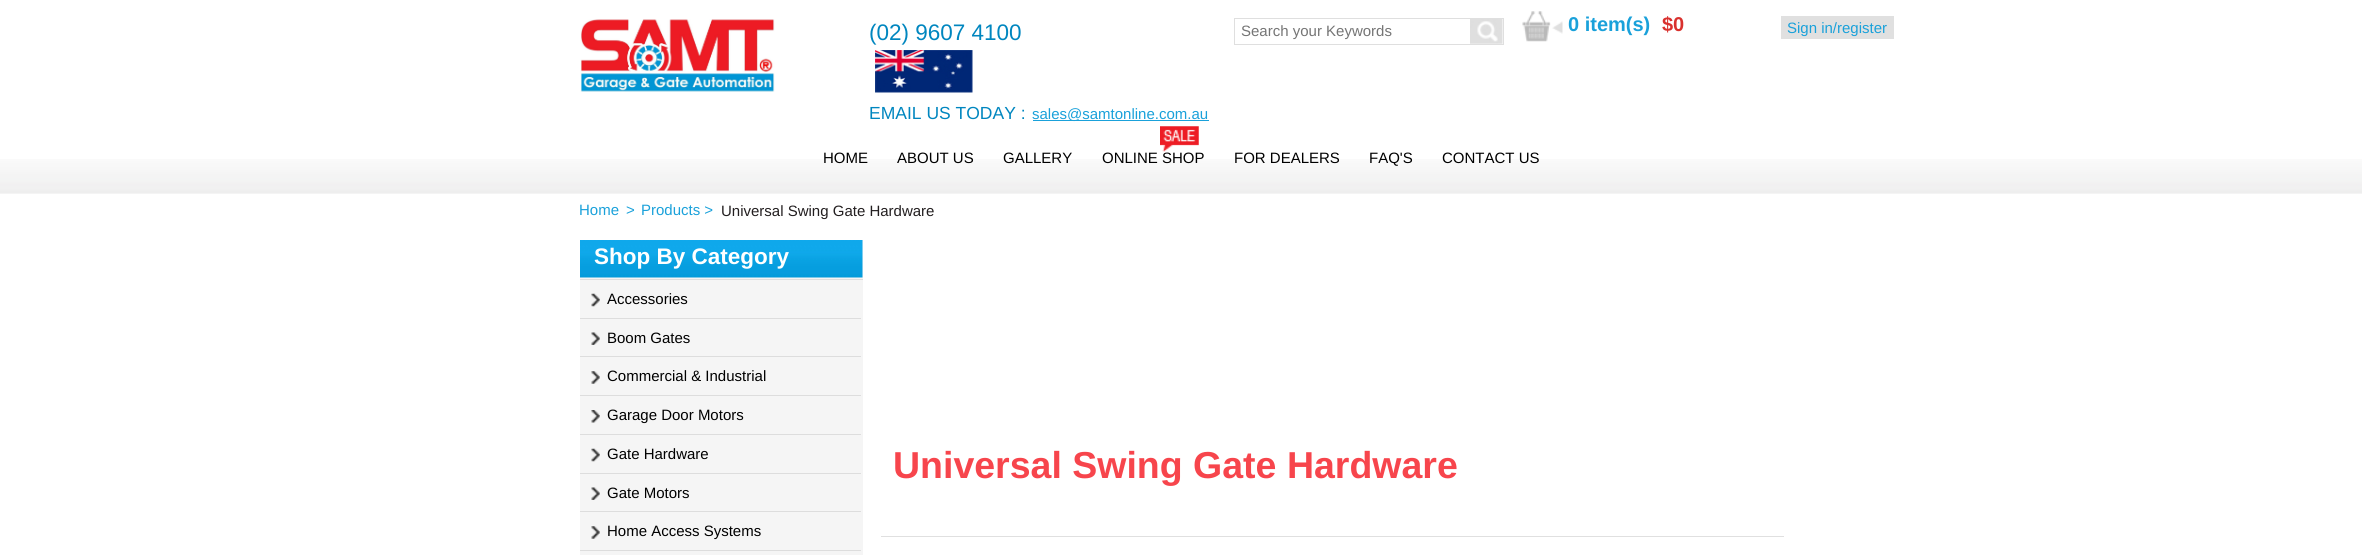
import math
import cairo


def use_color(cr, r, g, b):
  cr.set_source_rgb(r / 255, g / 255, b / 255)

def text(cr, x, y, s, family, size, color, bold=False, italic=False):
  cr.select_font_face(family, cairo.FONT_SLANT_ITALIC if italic else cairo.FONT_SLANT_NORMAL, cairo.FONT_WEIGHT_BOLD if bold else cairo.FONT_WEIGHT_NORMAL)
  cr.set_font_size(size)
  use_color(cr, *color)
  cr.move_to(x, y)
  cr.show_text(s)

def box(cr, x, y, w, h, *color):
  use_color(cr, *color)
  cr.rectangle(x, y, w, h)
  cr.fill()

def picture(cr, path, x, y, w, h):
  cr.save()
  cr.set_source_surface(cairo.ImageSurface.create_from_png(path), x, y)
  cr.rectangle(x, y, w, h)
  cr.fill()
  cr.restore()

def draw(cr):
  use_color(cr, 255, 255, 255)
  cr.paint()
  picture(cr, "img_01.png", 0, 159, 2362, 35)
  picture(cr, "img_02.png", 580, 19, 195, 73)
  picture(cr, "img_03.png", 875, 50, 98, 43)
  box(cr, 1033, 120, 176, 1, 26, 161, 218)
  cr.rectangle(1234.5, 18.5, 269, 26)
  use_color(cr, 223, 223, 223)
  cr.set_line_width(1)
  cr.stroke()
  picture(cr, "img_04.png", 1470, 19, 33, 25)
  picture(cr, "img_05.png", 1522, 11, 41, 31)
  box(cr, 1781, 16, 113, 23, 224, 224, 224)
  picture(cr, "img_06.png", 1160, 126, 39, 26)
  box(cr, 580, 240, 283, 315, 245, 245, 245)
  picture(cr, "img_07.png", 580, 240, 283, 38)
  box(cr, 580, 279, 283, 1, 221, 221, 221)
  box(cr, 580, 318, 281, 1, 221, 221, 221)
  picture(cr, "img_08.png", 591, 293, 9, 14)
  box(cr, 580, 356, 281, 1, 221, 221, 221)
  picture(cr, "img_09.png", 591, 332, 9, 13)
  box(cr, 580, 395, 281, 1, 221, 221, 221)
  picture(cr, "img_10.png", 591, 371, 9, 13)
  box(cr, 580, 434, 281, 1, 221, 221, 221)
  picture(cr, "img_11.png", 591, 410, 9, 13)
  box(cr, 580, 473, 281, 1, 221, 221, 221)
  picture(cr, "img_12.png", 591, 448, 9, 14)
  box(cr, 580, 511, 281, 1, 221, 221, 221)
  picture(cr, "img_09.png", 591, 487, 9, 13)
  box(cr, 580, 550, 281, 1, 221, 221, 221)
  picture(cr, "img_10.png", 591, 526, 9, 13)
  box(cr, 881, 536, 903, 1, 224, 224, 224)
  text(cr, 869, 40, "(02) 9607 4100", "Liberation Sans", 22.5, (0, 134, 191))
  text(cr, 869, 119, "EMAIL US TODAY :", "Liberation Sans", 17.5, (0, 134, 191))
  text(cr, 1032, 119, "sales@samtonline.com.au", "Liberation Sans", 15, (26, 161, 218))
  text(cr, 1241, 36, "Search your Keywords", "Liberation Sans", 15, (117, 117, 117))
  text(cr, 1568, 31, "0 item(s)", "Liberation Sans", 20, (26, 161, 218), bold=True)
  text(cr, 1662, 31, "$0", "Liberation Sans", 20, (217, 49, 46), bold=True)
  text(cr, 1787, 33, "Sign in/register", "Liberation Sans", 15, (26, 161, 218))
  text(cr, 823, 163, "HOME", "Liberation Sans", 15, (0, 0, 0))
  text(cr, 897, 163, "ABOUT US", "Liberation Sans", 15, (0, 0, 0))
  text(cr, 1003, 163, "GALLERY", "Liberation Sans", 15, (0, 0, 0))
  text(cr, 1102, 163, "ONLINE SHOP", "Liberation Sans", 15, (0, 0, 0))
  text(cr, 1234, 163, "FOR DEALERS", "Liberation Sans", 15, (0, 0, 0))
  text(cr, 1369, 163, "FAQ'S", "Liberation Sans", 15, (0, 0, 0))
  text(cr, 1442, 163, "CONTACT US", "Liberation Sans", 15, (0, 0, 0))
  text(cr, 579, 215, "Home", "Liberation Sans", 15, (26, 161, 218))
  text(cr, 626, 215, ">", "Liberation Sans", 15, (26, 161, 218))
  text(cr, 641, 215, "Products >", "Liberation Sans", 15, (26, 161, 218))
  text(cr, 721, 216, "Universal Swing Gate Hardware", "Liberation Sans", 15, (35, 31, 32))
  text(cr, 594, 264, "Shop By Category", "Liberation Sans", 22.5, (255, 255, 255), bold=True)
  text(cr, 607, 304, "Accessories", "Liberation Sans", 15, (0, 0, 0))
  text(cr, 607, 343, "Boom Gates", "Liberation Sans", 15, (0, 0, 0))
  text(cr, 607, 381, "Commercial & Industrial", "Liberation Sans", 15, (0, 0, 0))
  text(cr, 607, 420, "Garage Door Motors", "Liberation Sans", 15, (0, 0, 0))
  text(cr, 607, 459, "Gate Hardware", "Liberation Sans", 15, (0, 0, 0))
  text(cr, 607, 498, "Gate Motors", "Liberation Sans", 15, (0, 0, 0))
  text(cr, 607, 536, "Home Access Systems", "Liberation Sans", 15, (0, 0, 0))
  text(cr, 893, 478, "Universal Swing Gate Hardware", "Liberation Sans", 37.5, (247, 69, 76), bold=True)


surface = cairo.ImageSurface(cairo.FORMAT_RGB24, 2362, 555)
cr = cairo.Context(surface)
options = cairo.FontOptions()
options.set_hint_metrics(cairo.HINT_METRICS_OFF)
options.set_hint_style(cairo.HINT_STYLE_NONE)
cr.set_font_options(options)
cr.set_miter_limit(4)
draw(cr)
surface.write_to_png("out.png")
